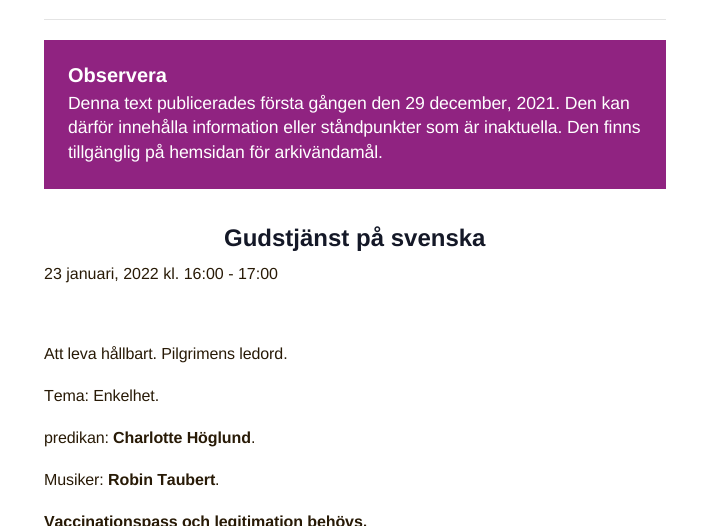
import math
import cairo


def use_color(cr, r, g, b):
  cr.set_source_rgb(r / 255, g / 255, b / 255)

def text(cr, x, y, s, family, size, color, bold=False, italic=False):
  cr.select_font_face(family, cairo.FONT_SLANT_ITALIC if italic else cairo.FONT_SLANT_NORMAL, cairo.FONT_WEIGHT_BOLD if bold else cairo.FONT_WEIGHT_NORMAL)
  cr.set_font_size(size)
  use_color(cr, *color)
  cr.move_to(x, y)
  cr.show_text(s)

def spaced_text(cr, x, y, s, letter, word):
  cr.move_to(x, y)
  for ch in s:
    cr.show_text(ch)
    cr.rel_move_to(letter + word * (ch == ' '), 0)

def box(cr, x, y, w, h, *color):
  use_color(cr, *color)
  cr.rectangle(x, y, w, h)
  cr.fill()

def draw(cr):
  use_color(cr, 255, 255, 255)
  cr.paint()
  box(cr, 44, 19, 622, 1, 228, 228, 228)
  box(cr, 44, 40, 622, 149, 144, 35, 129)
  text(cr, 68, 82, "Observera", "Liberation Sans", 20, (255, 255, 255), bold=True)
  cr.select_font_face("Liberation Sans")
  cr.set_font_size(17.6)
  spaced_text(cr, 68, 109, "Denna text publicerades första gången den 29 december, 2021. Den kan", -0.1, 0)
  spaced_text(cr, 68, 133, "därför innehålla information eller ståndpunkter som är inaktuella. Den finns", -0.1, 0)
  spaced_text(cr, 68, 158, "tillgänglig på hemsidan för arkivändamål.", -0.1, 0)
  text(cr, 224, 246, "Gudstjänst på svenska", "Liberation Sans", 24, (20, 24, 39), bold=True)
  text(cr, 44, 279, "23 januari, 2022 kl. 16:00 - 17:00", "Liberation Sans", 16, (40, 26, 6))
  spaced_text(cr, 44, 359, "Att leva hållbart. Pilgrimens ledord.", -0.1, 0)
  spaced_text(cr, 44, 401, "Tema: Enkelhet.", -0.1, 0)
  spaced_text(cr, 44, 443, "predikan:", -0.1, 0)
  cr.select_font_face("Liberation Sans", cairo.FONT_SLANT_NORMAL, cairo.FONT_WEIGHT_BOLD)
  spaced_text(cr, 113, 443, "Charlotte Höglund", -0.1, 0)
  cr.select_font_face("Liberation Sans")
  spaced_text(cr, 251, 443, ".", -0.1, 0)
  spaced_text(cr, 44, 485, "Musiker:", -0.1, 0)
  cr.select_font_face("Liberation Sans", cairo.FONT_SLANT_NORMAL, cairo.FONT_WEIGHT_BOLD)
  spaced_text(cr, 108, 485, "Robin Taubert", -0.1, 0)
  cr.select_font_face("Liberation Sans")
  spaced_text(cr, 215, 485, ".", -0.1, 0)
  cr.select_font_face("Liberation Sans", cairo.FONT_SLANT_NORMAL, cairo.FONT_WEIGHT_BOLD)
  spaced_text(cr, 44, 527, "Vaccinationspass och legitimation behövs.", -0.1, 0)


surface = cairo.ImageSurface(cairo.FORMAT_RGB24, 710, 526)
cr = cairo.Context(surface)
options = cairo.FontOptions()
options.set_hint_metrics(cairo.HINT_METRICS_OFF)
options.set_hint_style(cairo.HINT_STYLE_NONE)
cr.set_font_options(options)
cr.set_miter_limit(4)
draw(cr)
surface.write_to_png("out.png")
